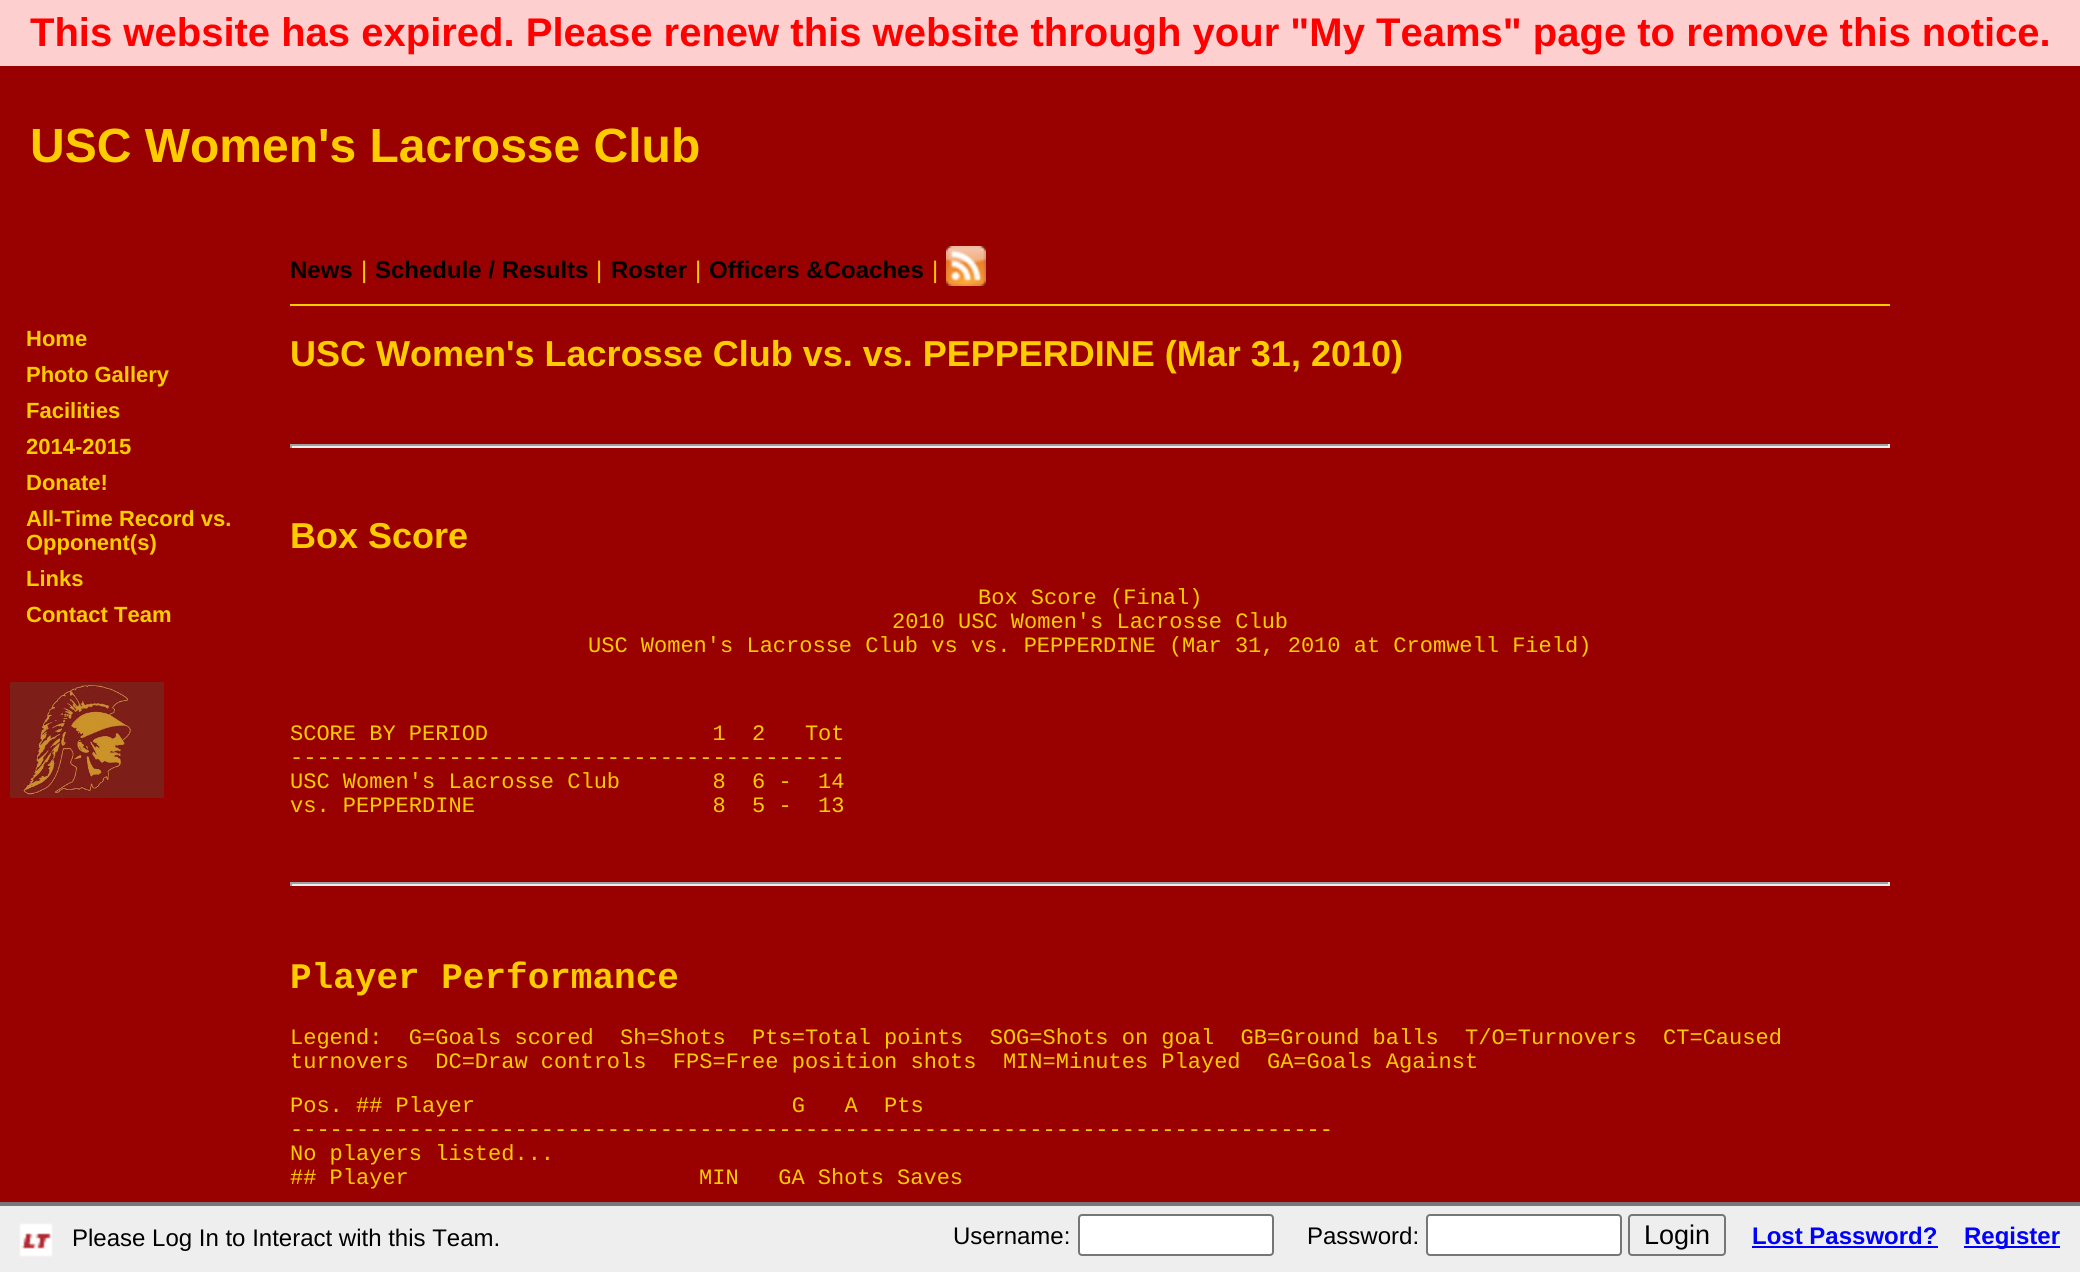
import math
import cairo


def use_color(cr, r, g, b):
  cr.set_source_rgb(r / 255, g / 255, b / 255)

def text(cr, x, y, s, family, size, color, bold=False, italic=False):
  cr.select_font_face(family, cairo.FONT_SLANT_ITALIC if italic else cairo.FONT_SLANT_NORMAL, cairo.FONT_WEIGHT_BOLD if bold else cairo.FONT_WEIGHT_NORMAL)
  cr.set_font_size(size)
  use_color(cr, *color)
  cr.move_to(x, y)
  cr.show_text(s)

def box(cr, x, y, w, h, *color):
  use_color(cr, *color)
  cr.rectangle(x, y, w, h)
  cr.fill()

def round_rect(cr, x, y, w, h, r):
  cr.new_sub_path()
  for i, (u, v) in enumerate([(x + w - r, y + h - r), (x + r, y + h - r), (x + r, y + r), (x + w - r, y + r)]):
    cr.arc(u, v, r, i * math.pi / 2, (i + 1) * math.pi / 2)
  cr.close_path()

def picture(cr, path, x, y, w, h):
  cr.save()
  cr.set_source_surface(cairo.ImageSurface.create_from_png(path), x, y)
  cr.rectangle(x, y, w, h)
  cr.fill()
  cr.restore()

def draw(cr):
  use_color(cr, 153, 0, 0)
  cr.paint()
  box(cr, 0, 0, 2080, 66, 254, 207, 207)
  picture(cr, "img_01.png", 10, 682, 154, 116)
  box(cr, 290, 304, 1600, 2, 255, 204, 0)
  picture(cr, "img_02.png", 946, 246, 40, 40)
  box(cr, 290, 444, 1600, 2, 159, 159, 159)
  box(cr, 1888, 444, 2, 4, 238, 238, 238)
  box(cr, 290, 446, 1600, 2, 238, 238, 238)
  box(cr, 290, 444, 2, 4, 159, 159, 159)
  box(cr, 290, 882, 1600, 2, 159, 159, 159)
  box(cr, 1888, 882, 2, 4, 238, 238, 238)
  box(cr, 290, 884, 1600, 2, 238, 238, 238)
  box(cr, 290, 882, 2, 4, 159, 159, 159)
  box(cr, 0, 1206, 2080, 66, 238, 238, 238)
  picture(cr, "img_03.png", 19, 1223, 34, 34)
  box(cr, 0, 1202, 2080, 4, 119, 119, 119)
  use_color(cr, 255, 255, 255)
  round_rect(cr, 1079, 1215, 194, 40, 3)
  cr.fill_preserve()
  use_color(cr, 118, 118, 118)
  cr.stroke()
  use_color(cr, 255, 255, 255)
  round_rect(cr, 1427, 1215, 194, 40, 3)
  cr.fill_preserve()
  use_color(cr, 118, 118, 118)
  cr.stroke()
  round_rect(cr, 1629, 1215, 96, 40, 3)
  cr.stroke()
  box(cr, 1752, 1246, 186, 2, 0, 0, 255)
  box(cr, 1964, 1246, 96, 2, 0, 0, 255)
  text(cr, 30, 46, "This website has expired. Please renew this website through your \"My Teams\" page to remove this notice.", "Liberation Sans", 40, (255, 0, 0), bold=True)
  text(cr, 30, 162, "USC Women's Lacrosse Club", "Liberation Sans", 48, (255, 204, 0), bold=True)
  text(cr, 26, 346, "Home", "Liberation Sans", 22, (255, 204, 0), bold=True)
  text(cr, 26, 382, "Photo Gallery", "Liberation Sans", 22, (255, 204, 0), bold=True)
  text(cr, 26, 418, "Facilities", "Liberation Sans", 22, (255, 204, 0), bold=True)
  text(cr, 26, 454, "2014-2015", "Liberation Sans", 22, (255, 204, 0), bold=True)
  text(cr, 26, 490, "Donate!", "Liberation Sans", 22, (255, 204, 0), bold=True)
  text(cr, 26, 526, "All-Time Record vs.", "Liberation Sans", 22, (255, 204, 0), bold=True)
  text(cr, 26, 550, "Opponent(s)", "Liberation Sans", 22, (255, 204, 0), bold=True)
  text(cr, 26, 586, "Links", "Liberation Sans", 22, (255, 204, 0), bold=True)
  text(cr, 26, 622, "Contact Team", "Liberation Sans", 22, (255, 204, 0), bold=True)
  text(cr, 290, 278, "News", "Liberation Sans", 24, (0, 0, 0), bold=True)
  text(cr, 361, 278, "|", "Liberation Sans", 24, (255, 204, 0))
  text(cr, 375, 278, "Schedule / Results", "Liberation Sans", 24, (0, 0, 0), bold=True)
  text(cr, 596, 278, "|", "Liberation Sans", 24, (255, 204, 0))
  text(cr, 611, 278, "Roster", "Liberation Sans", 24, (0, 0, 0), bold=True)
  text(cr, 695, 278, "|", "Liberation Sans", 24, (255, 204, 0))
  text(cr, 709, 278, "Officers &Coaches", "Liberation Sans", 24, (0, 0, 0), bold=True)
  text(cr, 932, 278, "|", "Liberation Sans", 24, (255, 204, 0))
  text(cr, 290, 366, "USC Women's Lacrosse Club vs. vs. PEPPERDINE (Mar 31, 2010)", "Liberation Sans", 36, (255, 204, 0), bold=True)
  text(cr, 290, 548, "Box Score", "Liberation Sans", 36, (255, 204, 0), bold=True)
  text(cr, 978, 604, "Box Score (Final)", "Liberation Mono", 22, (255, 204, 0))
  text(cr, 892, 628, "2010 USC Women's Lacrosse Club", "Liberation Mono", 22, (255, 204, 0))
  text(cr, 588, 652, "USC Women's Lacrosse Club vs vs. PEPPERDINE (Mar 31, 2010 at Cromwell Field)", "Liberation Mono", 22, (255, 204, 0))
  text(cr, 290, 740, "SCORE BY PERIOD                 1  2   Tot", "Liberation Mono", 22, (255, 204, 0))
  text(cr, 290, 764, "------------------------------------------", "Liberation Mono", 22, (255, 204, 0))
  text(cr, 290, 788, "USC Women's Lacrosse Club       8  6 -  14", "Liberation Mono", 22, (255, 204, 0))
  text(cr, 290, 812, "vs. PEPPERDINE                  8  5 -  13", "Liberation Mono", 22, (255, 204, 0))
  text(cr, 290, 988, "Player Performance", "Liberation Mono", 36, (255, 204, 0), bold=True)
  text(cr, 290, 1044, "Legend:  G=Goals scored  Sh=Shots  Pts=Total points  SOG=Shots on goal  GB=Ground balls  T/O=Turnovers  CT=Caused", "Liberation Mono", 22, (255, 204, 0))
  text(cr, 290, 1068, "turnovers  DC=Draw controls  FPS=Free position shots  MIN=Minutes Played  GA=Goals Against", "Liberation Mono", 22, (255, 204, 0))
  text(cr, 290, 1112, "Pos. ## Player                        G   A  Pts", "Liberation Mono", 22, (255, 204, 0))
  text(cr, 290, 1136, "-------------------------------------------------------------------------------", "Liberation Mono", 22, (255, 204, 0))
  text(cr, 290, 1160, "No players listed...", "Liberation Mono", 22, (255, 204, 0))
  text(cr, 290, 1184, "## Player", "Liberation Mono", 22, (255, 204, 0))
  text(cr, 699, 1184, "MIN   GA Shots Saves", "Liberation Mono", 22, (255, 204, 0))
  text(cr, 72, 1246, "Please Log In to Interact with this Team.", "Liberation Sans", 24, (0, 0, 0))
  text(cr, 953, 1244, "Username:", "Liberation Sans", 24, (0, 0, 0))
  text(cr, 1307, 1244, "Password:", "Liberation Sans", 24, (0, 0, 0))
  text(cr, 1644, 1244, "Login", "Liberation Sans", 27, (0, 0, 0))
  text(cr, 1752, 1244, "Lost Password?", "Liberation Sans", 24, (0, 0, 255), bold=True)
  text(cr, 1964, 1244, "Register", "Liberation Sans", 24, (0, 0, 255), bold=True)


surface = cairo.ImageSurface(cairo.FORMAT_RGB24, 2080, 1272)
cr = cairo.Context(surface)
options = cairo.FontOptions()
options.set_hint_metrics(cairo.HINT_METRICS_OFF)
options.set_hint_style(cairo.HINT_STYLE_NONE)
cr.set_font_options(options)
cr.set_miter_limit(4)
draw(cr)
surface.write_to_png("out.png")
